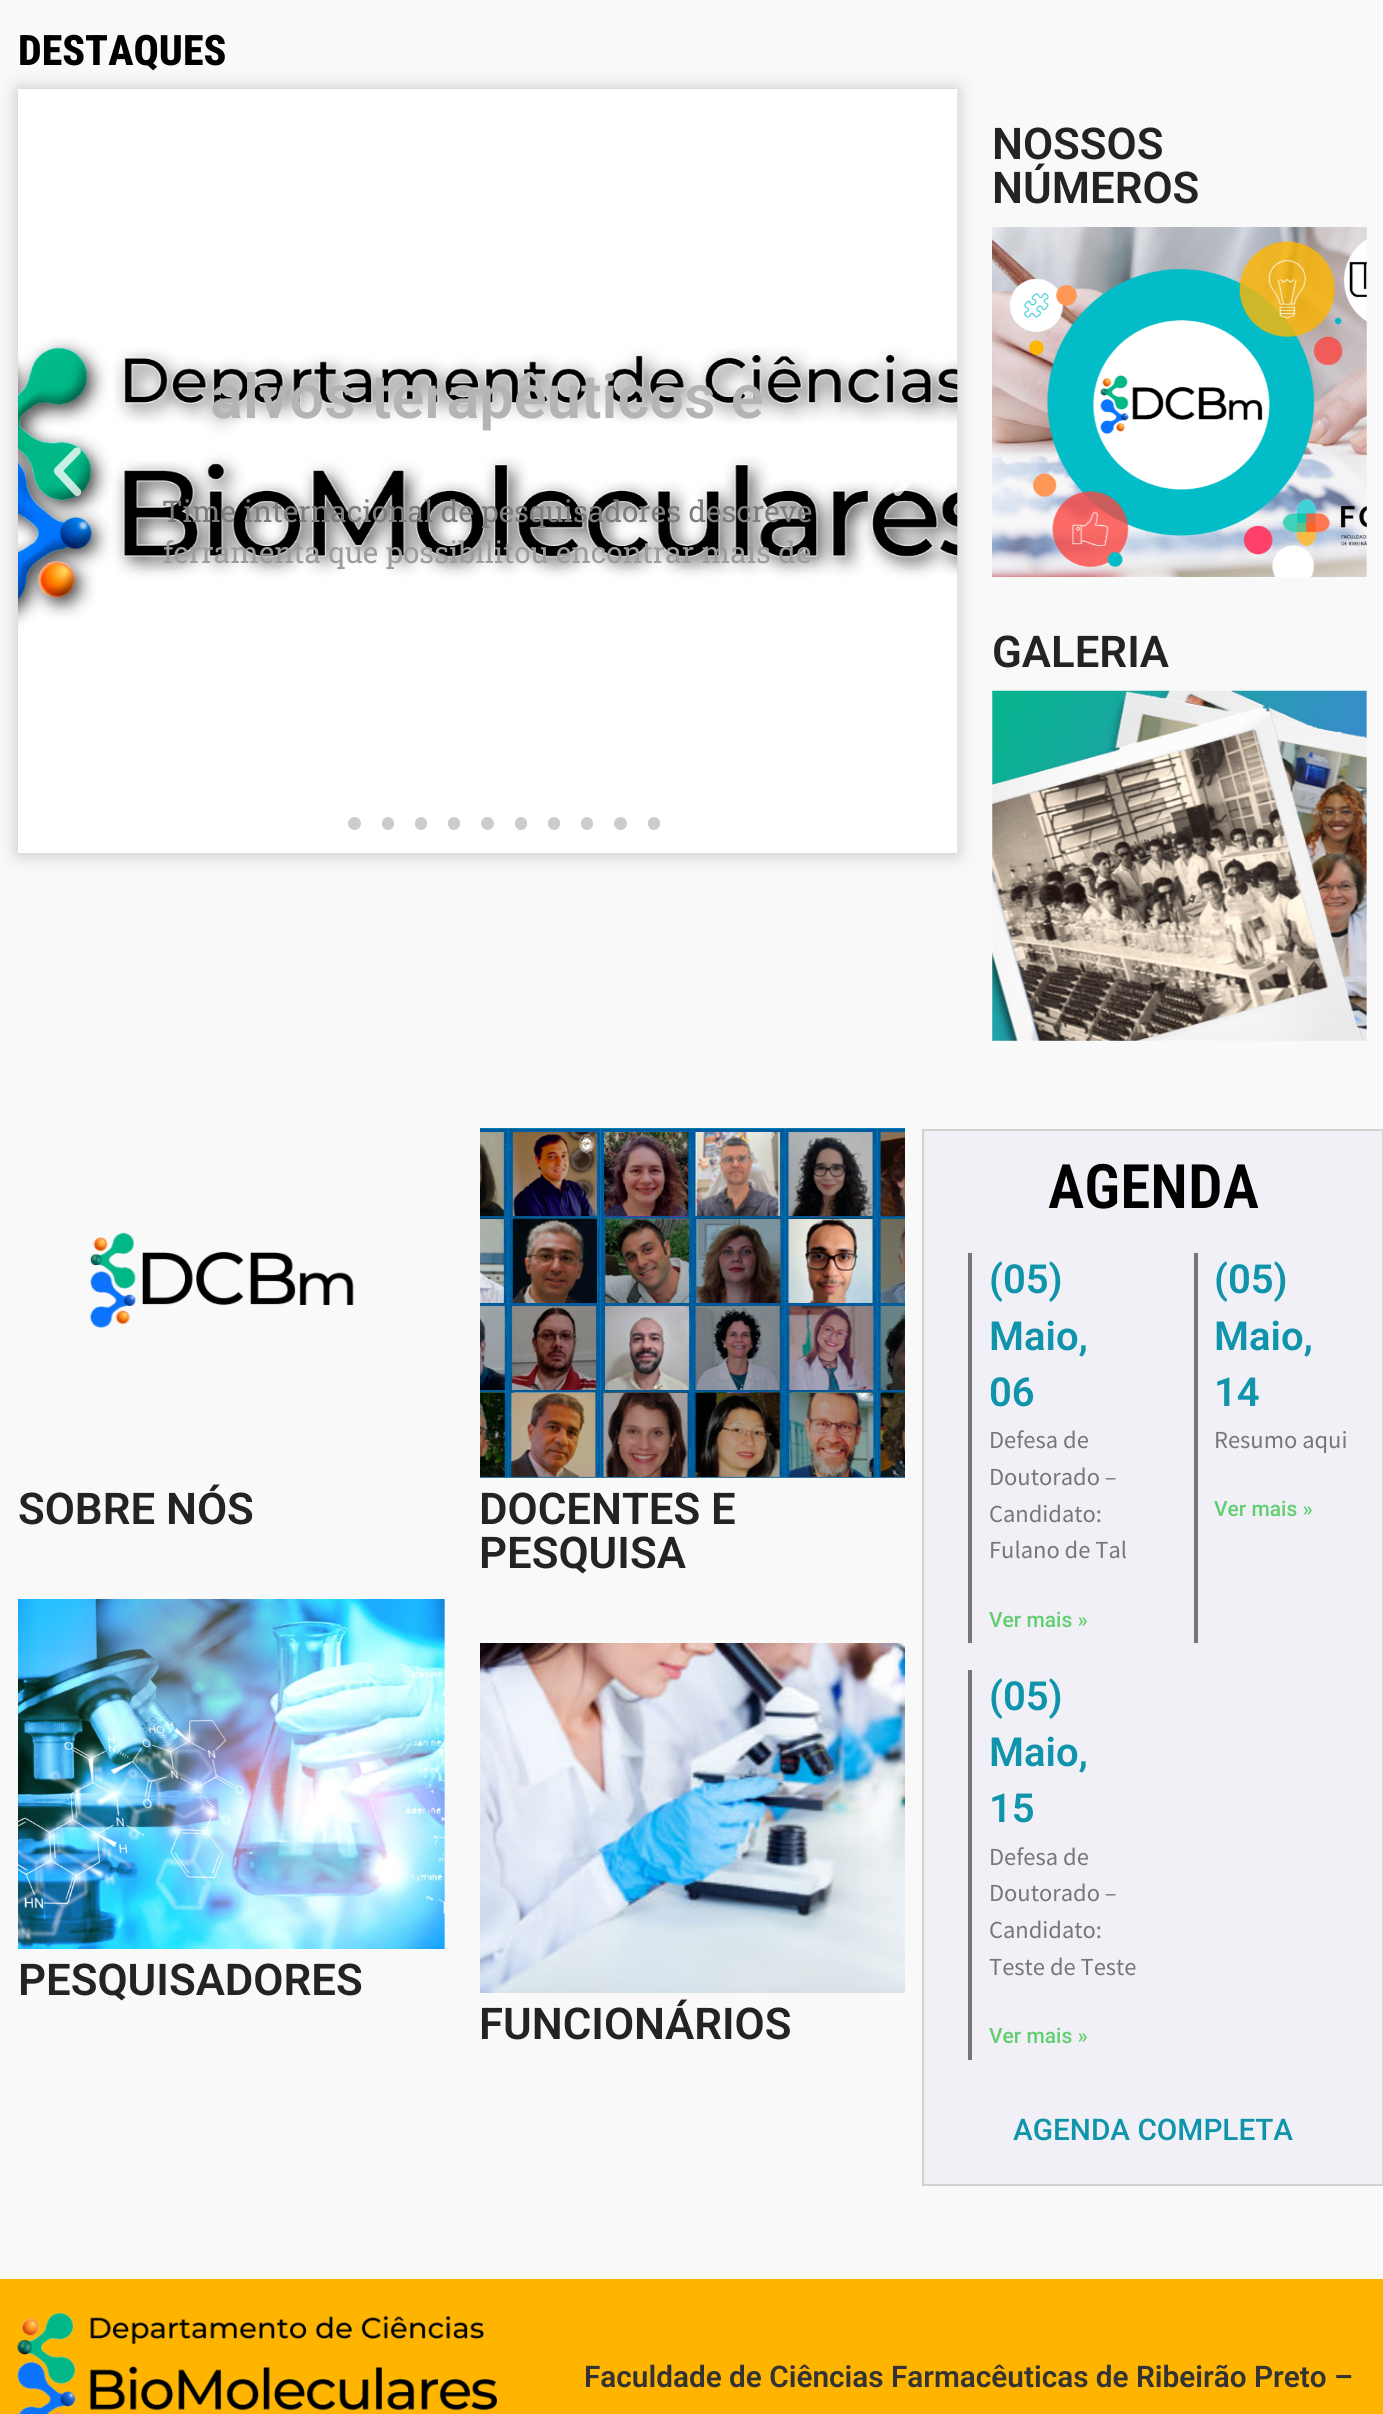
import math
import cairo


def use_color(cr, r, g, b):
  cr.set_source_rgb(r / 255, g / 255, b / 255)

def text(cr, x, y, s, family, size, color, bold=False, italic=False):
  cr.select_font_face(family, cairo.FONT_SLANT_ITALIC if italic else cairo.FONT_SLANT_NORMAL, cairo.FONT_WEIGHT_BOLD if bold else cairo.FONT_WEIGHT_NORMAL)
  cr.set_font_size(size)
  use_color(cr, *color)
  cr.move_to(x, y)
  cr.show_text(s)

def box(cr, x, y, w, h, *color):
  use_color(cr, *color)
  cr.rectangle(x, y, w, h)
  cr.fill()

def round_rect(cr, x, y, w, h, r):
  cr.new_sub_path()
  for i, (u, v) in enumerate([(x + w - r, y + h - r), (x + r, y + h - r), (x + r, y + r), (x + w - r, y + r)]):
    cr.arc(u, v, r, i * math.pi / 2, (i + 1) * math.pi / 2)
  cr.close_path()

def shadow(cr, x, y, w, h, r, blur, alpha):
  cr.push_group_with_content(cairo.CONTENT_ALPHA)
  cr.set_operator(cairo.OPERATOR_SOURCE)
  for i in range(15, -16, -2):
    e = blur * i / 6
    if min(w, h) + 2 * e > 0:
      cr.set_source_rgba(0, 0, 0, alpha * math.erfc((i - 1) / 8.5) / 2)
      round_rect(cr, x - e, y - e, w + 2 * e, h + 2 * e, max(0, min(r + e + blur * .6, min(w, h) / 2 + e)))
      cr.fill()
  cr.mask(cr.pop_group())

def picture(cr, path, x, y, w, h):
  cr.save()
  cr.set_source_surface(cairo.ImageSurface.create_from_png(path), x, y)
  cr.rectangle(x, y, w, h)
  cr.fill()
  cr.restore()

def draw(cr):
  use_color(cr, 249, 249, 249)
  cr.paint()
  use_color(cr, 0, 0, 0)
  shadow(cr, 18, 89, 939, 765, 0, 9, 0.22)
  box(cr, 18, 853, 939, 1, 187, 187, 187)
  picture(cr, "img_02.png", 18, 89, 940, 765)
  picture(cr, "img_01.png", 53, 447, 29, 49)
  picture(cr, "img_03.png", 893, 482, 19, 14)
  use_color(cr, 204, 204, 204)
  cr.arc(354.5, 823.5, 6.5, 0, 2 * math.pi)
  cr.fill()
  round_rect(cr, 382, 817, 12, 13, 6)
  cr.fill()
  round_rect(cr, 415, 817, 12, 13, 6)
  cr.fill()
  round_rect(cr, 448, 817, 12, 13, 6)
  cr.fill()
  cr.arc(487.5, 823.5, 6.5, 0, 2 * math.pi)
  cr.fill()
  round_rect(cr, 515, 817, 12, 13, 6)
  cr.fill()
  round_rect(cr, 548, 817, 12, 13, 6)
  cr.fill()
  round_rect(cr, 581, 817, 12, 13, 6)
  cr.fill()
  cr.arc(620.5, 823.5, 6.5, 0, 2 * math.pi)
  cr.fill()
  round_rect(cr, 648, 817, 12, 13, 6)
  cr.fill()
  picture(cr, "img_04.png", 992, 227, 375, 350)
  picture(cr, "img_05.png", 992, 690, 375, 351)
  picture(cr, "img_06.png", 89, 1232, 265, 96)
  picture(cr, "img_07.png", 18, 1599, 427, 350)
  picture(cr, "img_08.png", 480, 1128, 425, 350)
  picture(cr, "img_09.png", 480, 1643, 425, 350)
  use_color(cr, 240, 240, 246)
  cr.rectangle(923, 1130, 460, 1055)
  cr.fill_preserve()
  use_color(cr, 210, 210, 210)
  cr.stroke()
  box(cr, 968, 1253, 4, 390, 118, 118, 118)
  box(cr, 1194, 1253, 4, 390, 118, 118, 118)
  box(cr, 968, 1670, 4, 390, 118, 118, 118)
  box(cr, 0, 2279, 1383, 135, 255, 181, 0)
  picture(cr, "img_10.png", 17, 2313, 480, 101)
  text(cr, 18, 65, "DESTAQUES", "Roboto Condensed ExtraBold", 42, (0, 0, 0))
  text(cr, 210, 418, "alvos terapêuticos e", "Roboto SemiBold", 61.25, (180, 180, 180))
  text(cr, 162, 522, "Time internacional de pesquisadores descreve", "Roboto Slab", 29.75, (125, 125, 125))
  text(cr, 163, 563, "ferramenta que possibilitou encontrar mais de", "Roboto Slab", 29.75, (156, 156, 156))
  text(cr, 992, 159, "NOSSOS", "Roboto SemiBold", 43.75, (35, 35, 35))
  text(cr, 992, 203, "NÚMEROS", "Roboto SemiBold", 43.75, (35, 35, 35))
  text(cr, 992, 667, "GALERIA", "Roboto SemiBold", 43.75, (35, 35, 35))
  text(cr, 18, 1524, "SOBRE NÓS", "Roboto SemiBold", 43.75, (35, 35, 35))
  text(cr, 18, 1995, "PESQUISADORES", "Roboto SemiBold", 43.75, (35, 35, 35))
  text(cr, 479, 1524, "DOCENTES E", "Roboto SemiBold", 43.75, (35, 35, 35))
  text(cr, 479, 1568, "PESQUISA", "Roboto SemiBold", 43.75, (35, 35, 35))
  text(cr, 479, 2039, "FUNCIONÁRIOS", "Roboto SemiBold", 43.75, (35, 35, 35))
  text(cr, 1048, 1208, "AGENDA", "Roboto Condensed SemiBold", 61.25, (0, 0, 0))
  text(cr, 989, 1293, "(05)", "Roboto SemiBold", 40, (16, 148, 171))
  text(cr, 989, 1350, "Maio,", "Roboto SemiBold", 40, (16, 148, 171))
  text(cr, 989, 1406, "06", "Roboto SemiBold", 40, (16, 148, 171))
  text(cr, 989, 1448, "Defesa de", "Source Sans Pro", 24.5, (119, 119, 119))
  text(cr, 989, 1485, "Doutorado –", "Source Sans Pro", 24.5, (119, 119, 119))
  text(cr, 989, 1522, "Candidato:", "Source Sans Pro", 24.5, (119, 119, 119))
  text(cr, 989, 1558, "Fulano de Tal", "Source Sans Pro", 24.5, (119, 119, 119))
  text(cr, 989, 1627, "Ver mais »", "Roboto Medium", 21, (97, 206, 112))
  text(cr, 1214, 1293, "(05)", "Roboto SemiBold", 40, (16, 148, 171))
  text(cr, 1214, 1350, "Maio,", "Roboto SemiBold", 40, (16, 148, 171))
  text(cr, 1214, 1406, "14", "Roboto SemiBold", 40, (16, 148, 171))
  text(cr, 1214, 1448, "Resumo aqui", "Source Sans Pro", 24.5, (119, 119, 119))
  text(cr, 1214, 1516, "Ver mais »", "Roboto Medium", 21, (97, 206, 112))
  text(cr, 989, 1710, "(05)", "Roboto SemiBold", 40, (16, 148, 171))
  text(cr, 989, 1766, "Maio,", "Roboto SemiBold", 40, (16, 148, 171))
  text(cr, 989, 1822, "15", "Roboto SemiBold", 40, (16, 148, 171))
  text(cr, 989, 1865, "Defesa de", "Source Sans Pro", 24.5, (119, 119, 119))
  text(cr, 989, 1901, "Doutorado –", "Source Sans Pro", 24.5, (119, 119, 119))
  text(cr, 989, 1938, "Candidato:", "Source Sans Pro", 24.5, (119, 119, 119))
  text(cr, 989, 1975, "Teste de Teste", "Source Sans Pro", 24.5, (119, 119, 119))
  text(cr, 989, 2043, "Ver mais »", "Roboto Medium", 21, (97, 206, 112))
  text(cr, 1013, 2140, "AGENDA COMPLETA", "Roboto Medium", 29.75, (16, 148, 171))
  text(cr, 584, 2387, "Faculdade de Ciências Farmacêuticas de Ribeirão Preto –", "Roboto SemiBold", 29.75, (51, 51, 51))


surface = cairo.ImageSurface(cairo.FORMAT_RGB24, 1383, 2414)
cr = cairo.Context(surface)
options = cairo.FontOptions()
options.set_hint_metrics(cairo.HINT_METRICS_OFF)
options.set_hint_style(cairo.HINT_STYLE_NONE)
cr.set_font_options(options)
cr.set_miter_limit(4)
draw(cr)
surface.write_to_png("out.png")
